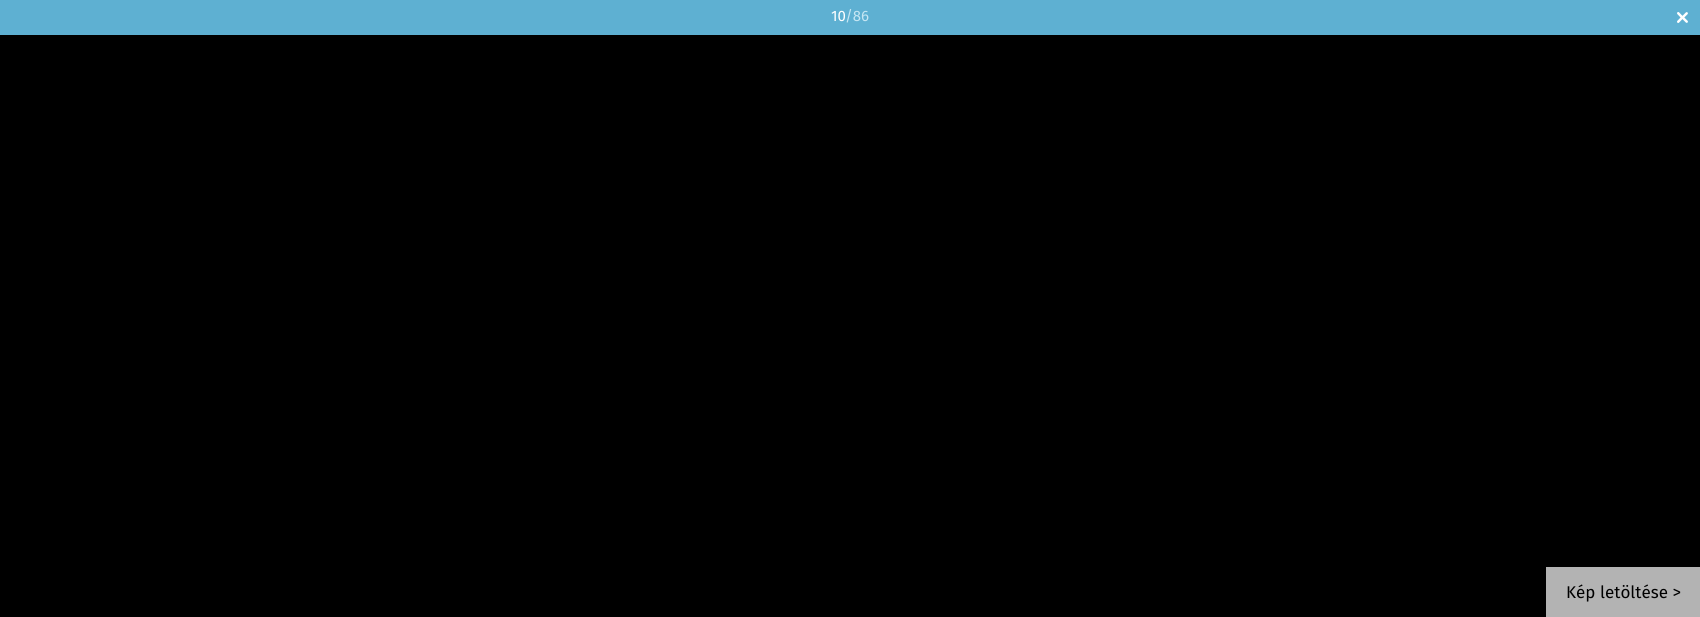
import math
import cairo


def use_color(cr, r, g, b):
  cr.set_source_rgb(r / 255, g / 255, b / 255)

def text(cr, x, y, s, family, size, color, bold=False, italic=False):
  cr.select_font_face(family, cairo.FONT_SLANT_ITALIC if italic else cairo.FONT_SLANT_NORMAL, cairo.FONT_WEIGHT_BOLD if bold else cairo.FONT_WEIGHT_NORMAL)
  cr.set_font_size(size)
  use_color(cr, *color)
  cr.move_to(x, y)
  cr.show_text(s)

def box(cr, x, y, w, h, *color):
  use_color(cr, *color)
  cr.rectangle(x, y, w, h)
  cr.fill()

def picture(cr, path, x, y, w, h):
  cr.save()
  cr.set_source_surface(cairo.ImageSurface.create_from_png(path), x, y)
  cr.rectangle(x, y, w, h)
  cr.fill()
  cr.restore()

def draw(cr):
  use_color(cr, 0, 0, 0)
  cr.paint()
  box(cr, 0, 0, 1700, 35, 94, 176, 210)
  picture(cr, "img_01.png", 1677, 12, 11, 11)
  box(cr, 1546, 567, 154, 50, 179, 179, 179)
  text(cr, 831, 21, "10", "Fira Sans", 15, (255, 255, 255))
  text(cr, 845, 21, "/86", "Fira Sans", 15, (198, 230, 243))
  text(cr, 1566, 598, "Kép letöltése >", "Fira Sans", 17, (0, 0, 0))


surface = cairo.ImageSurface(cairo.FORMAT_RGB24, 1700, 617)
cr = cairo.Context(surface)
options = cairo.FontOptions()
options.set_hint_metrics(cairo.HINT_METRICS_OFF)
options.set_hint_style(cairo.HINT_STYLE_NONE)
cr.set_font_options(options)
cr.set_miter_limit(4)
draw(cr)
surface.write_to_png("out.png")
